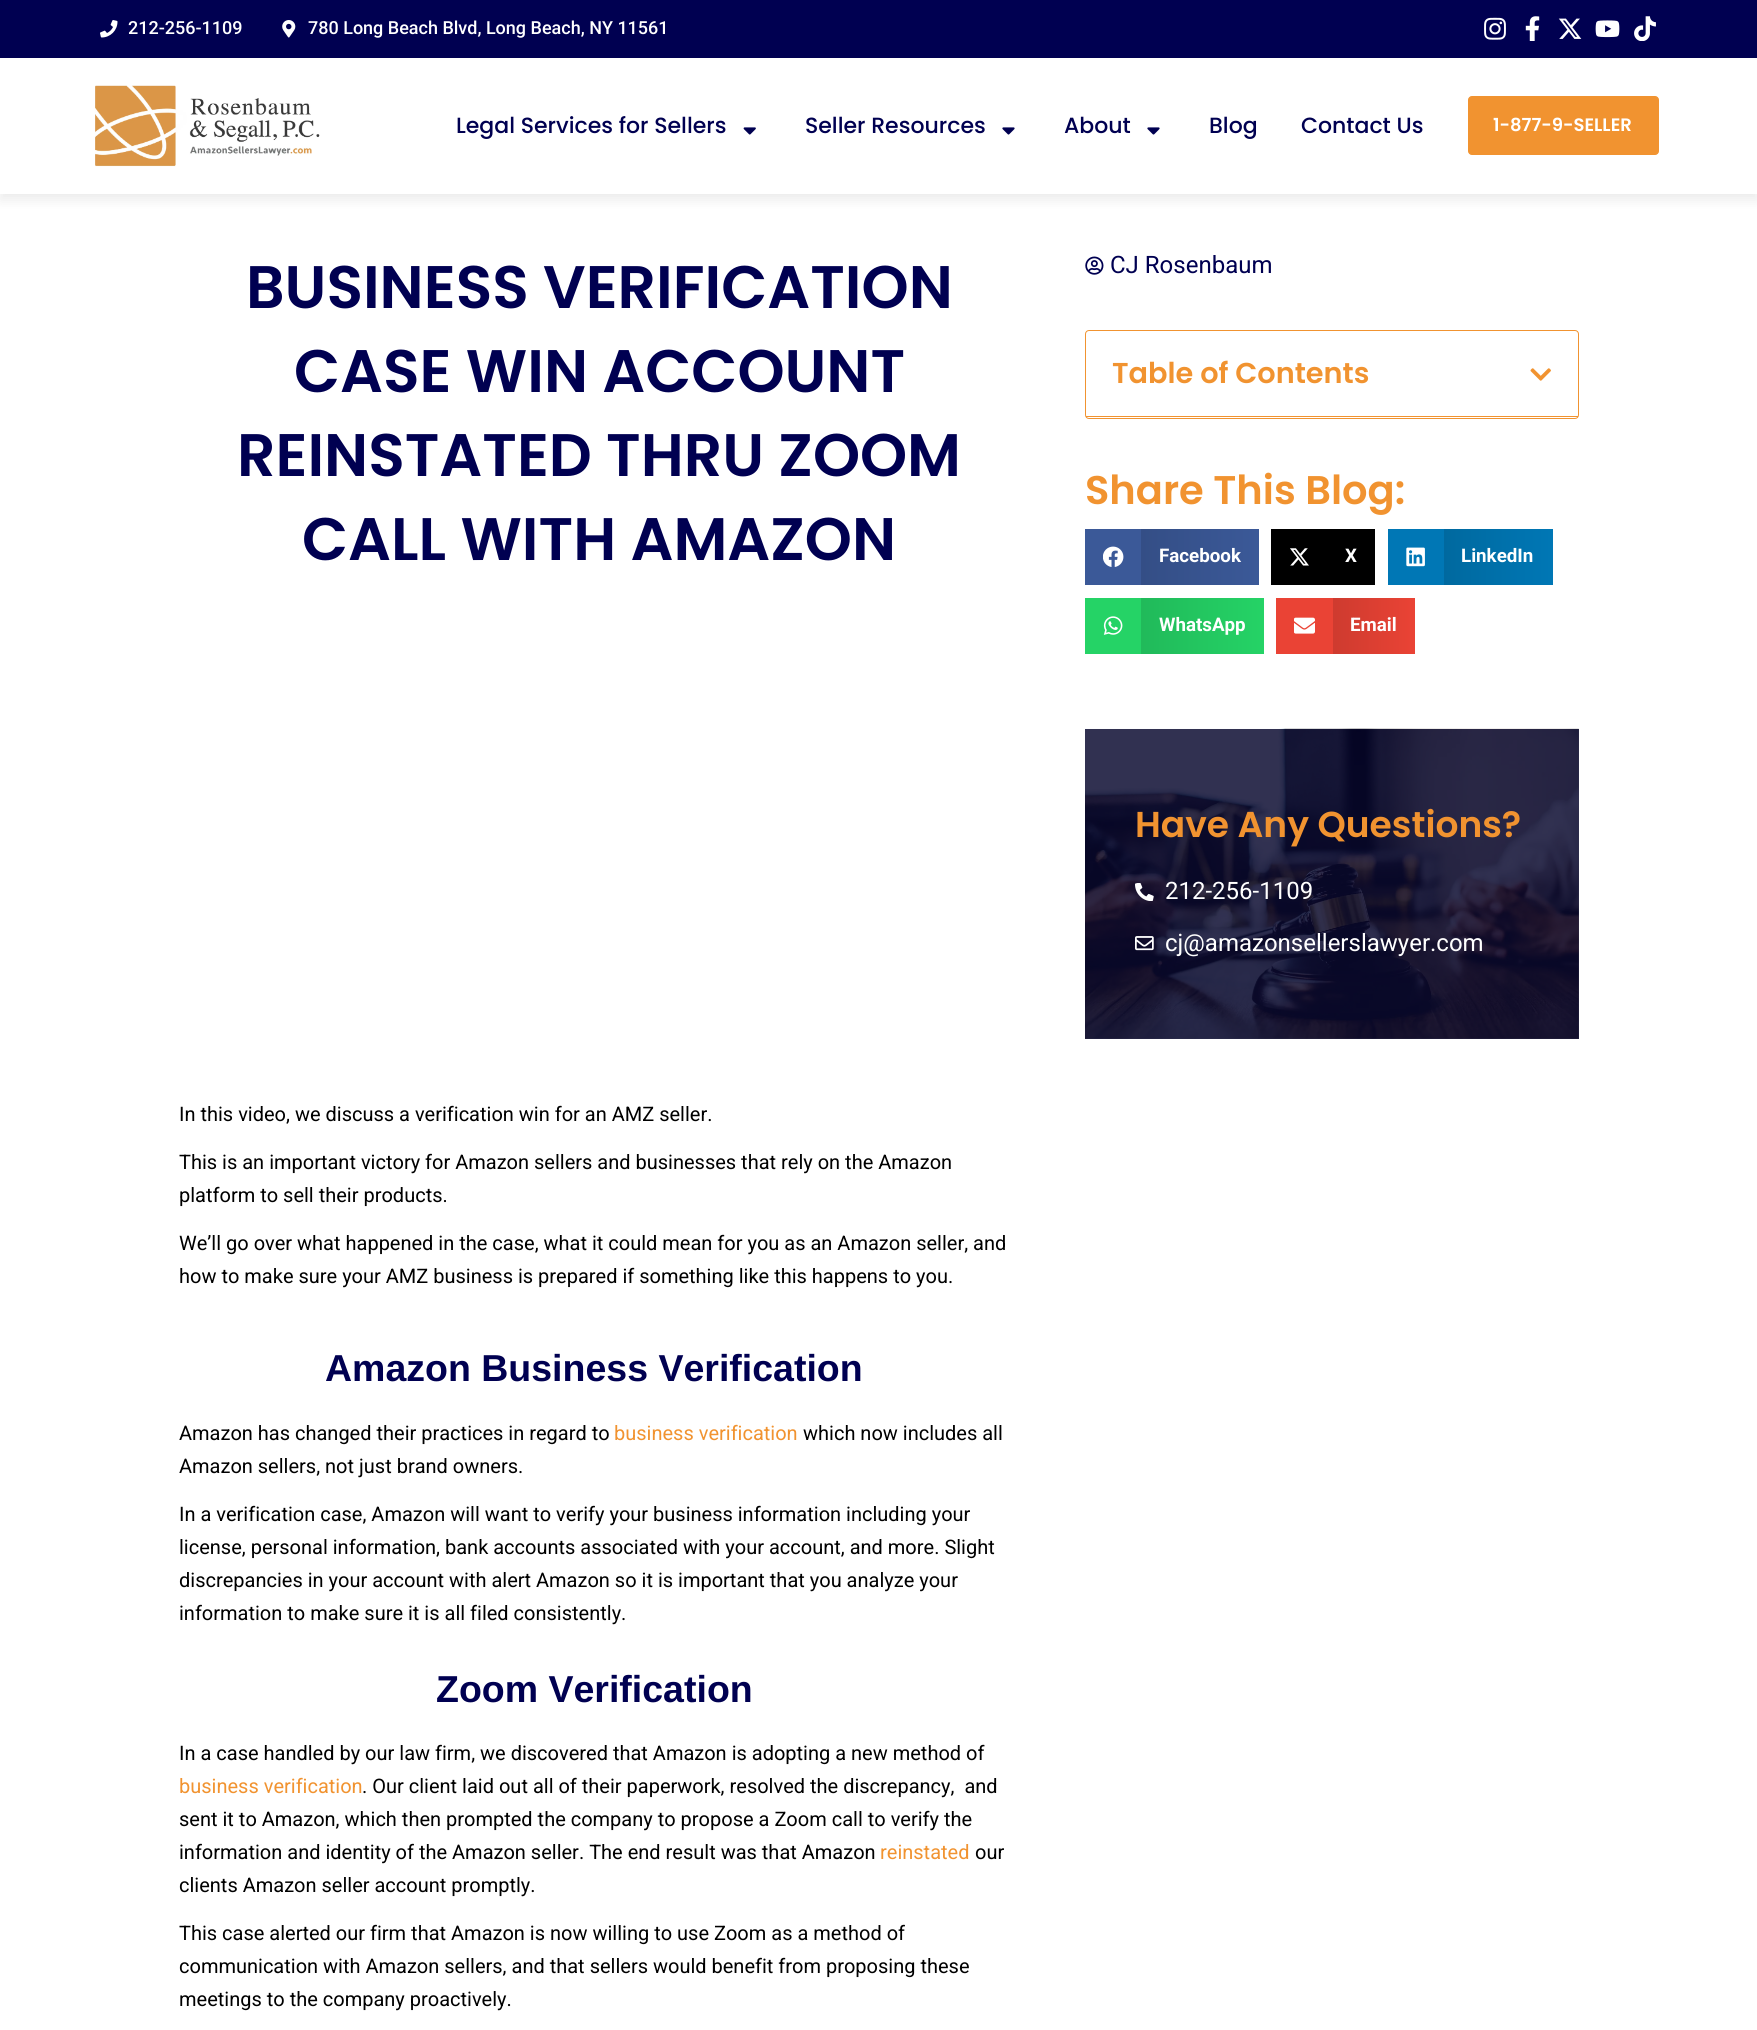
import math
import cairo


def use_color(cr, r, g, b):
  cr.set_source_rgb(r / 255, g / 255, b / 255)

def text(cr, x, y, s, family, size, color, bold=False, italic=False):
  cr.select_font_face(family, cairo.FONT_SLANT_ITALIC if italic else cairo.FONT_SLANT_NORMAL, cairo.FONT_WEIGHT_BOLD if bold else cairo.FONT_WEIGHT_NORMAL)
  cr.set_font_size(size)
  use_color(cr, *color)
  cr.move_to(x, y)
  cr.show_text(s)

def box(cr, x, y, w, h, *color):
  use_color(cr, *color)
  cr.rectangle(x, y, w, h)
  cr.fill()

def round_rect(cr, x, y, w, h, r):
  cr.new_sub_path()
  for i, (u, v) in enumerate([(x + w - r, y + h - r), (x + r, y + h - r), (x + r, y + r), (x + w - r, y + r)]):
    cr.arc(u, v, r, i * math.pi / 2, (i + 1) * math.pi / 2)
  cr.close_path()

def shadow(cr, x, y, w, h, r, blur, alpha):
  cr.push_group_with_content(cairo.CONTENT_ALPHA)
  cr.set_operator(cairo.OPERATOR_SOURCE)
  for i in range(15, -16, -2):
    e = blur * i / 6
    if min(w, h) + 2 * e > 0:
      cr.set_source_rgba(0, 0, 0, alpha * math.erfc((i - 1) / 8.5) / 2)
      round_rect(cr, x - e, y - e, w + 2 * e, h + 2 * e, max(0, min(r + e + blur * .6, min(w, h) / 2 + e)))
      cr.fill()
  cr.mask(cr.pop_group())

def picture(cr, path, x, y, w, h):
  cr.save()
  cr.set_source_surface(cairo.ImageSurface.create_from_png(path), x, y)
  cr.rectangle(x, y, w, h)
  cr.fill()
  cr.restore()

def draw(cr):
  use_color(cr, 255, 255, 255)
  cr.paint()
  box(cr, 1085, 729, 494, 310, 51, 51, 82)
  box(cr, 0, 0, 1757, 58, 0, 0, 81)
  picture(cr, "img_01.png", 100, 20, 18, 18)
  picture(cr, "img_02.png", 282, 20, 14, 18)
  picture(cr, "img_03.png", 1484, 17, 22, 23)
  picture(cr, "img_04.png", 1525, 16, 15, 25)
  picture(cr, "img_05.png", 1558, 18, 24, 21)
  picture(cr, "img_06.png", 1595, 20, 25, 18)
  picture(cr, "img_07.png", 1634, 16, 22, 25)
  use_color(cr, 0, 0, 0)
  shadow(cr, 0, 64, 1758, 136, 0, 6, 0.08)
  box(cr, 0, 58, 1757, 136, 255, 255, 255)
  picture(cr, "img_08.png", 95, 85, 225, 82)
  picture(cr, "img_09.png", 743, 127, 13, 8)
  picture(cr, "img_10.png", 1002, 127, 13, 8)
  picture(cr, "img_10.png", 1147, 127, 13, 8)
  use_color(cr, 241, 147, 48)
  round_rect(cr, 1468.5, 96.5, 190, 58, 3.5)
  cr.fill_preserve()
  cr.set_line_width(1)
  cr.stroke()
  picture(cr, "img_11.png", 1085, 256, 19, 19)
  round_rect(cr, 1085.5, 330.5, 493, 88, 3.5)
  cr.stroke()
  box(cr, 1086, 416, 492, 1, 241, 147, 48)
  picture(cr, "img_12.png", 1530, 368, 21, 13)
  box(cr, 1085, 529, 56, 56, 59, 89, 152)
  picture(cr, "img_13.png", 1103, 546, 21, 21)
  gradient = cairo.LinearGradient(1141, 557, 1259, 557)
  gradient.add_color_stop_rgba(0, 0.204, 0.306, 0.525, 1)
  gradient.add_color_stop_rgba(1, 0.231, 0.349, 0.596, 1)
  cr.set_source(gradient)
  cr.rectangle(1141, 529, 118, 56)
  cr.fill()
  box(cr, 1271, 529, 104, 56, 0, 0, 0)
  picture(cr, "img_14.png", 1290, 548, 19, 18)
  box(cr, 1388, 529, 56, 56, 0, 119, 181)
  picture(cr, "img_15.png", 1406, 547, 19, 20)
  gradient = cairo.LinearGradient(1444, 557, 1553, 557)
  gradient.add_color_stop_rgba(0, 0, 0.412, 0.624, 1)
  gradient.add_color_stop_rgba(1, 0, 0.467, 0.71, 1)
  cr.set_source(gradient)
  cr.rectangle(1444, 529, 109, 56)
  cr.fill()
  box(cr, 1085, 598, 56, 56, 37, 211, 102)
  picture(cr, "img_16.png", 1103, 616, 20, 19)
  gradient = cairo.LinearGradient(1141, 626, 1264, 626)
  gradient.add_color_stop_rgba(0, 0.129, 0.729, 0.353, 1)
  gradient.add_color_stop_rgba(1, 0.145, 0.827, 0.4, 1)
  cr.set_source(gradient)
  cr.rectangle(1141, 598, 123, 56)
  cr.fill()
  box(cr, 1276, 598, 57, 56, 234, 67, 53)
  picture(cr, "img_17.png", 1294, 617, 21, 17)
  gradient = cairo.LinearGradient(1333, 626, 1415, 626)
  gradient.add_color_stop_rgba(0, 0.808, 0.231, 0.184, 1)
  gradient.add_color_stop_rgba(1, 0.918, 0.263, 0.208, 1)
  cr.set_source(gradient)
  cr.rectangle(1333, 598, 82, 56)
  cr.fill()
  picture(cr, "img_18.png", 1085, 728, 494, 311)
  picture(cr, "img_19.png", 1135, 883, 19, 18)
  picture(cr, "img_20.png", 1135, 936, 19, 15)
  text(cr, 128, 34, "212-256-1109", "Roboto Medium", 18, (255, 255, 255))
  text(cr, 308, 34, "780 Long Beach Blvd, Long Beach, NY 11561", "Roboto Medium", 18, (255, 255, 255))
  text(cr, 456, 133, "Legal Services for Sellers", "Poppins Medium", 22, (0, 0, 81))
  text(cr, 805, 133, "Seller Resources", "Poppins Medium", 22, (0, 0, 81))
  text(cr, 1064, 133, "About", "Poppins Medium", 22, (0, 0, 81))
  text(cr, 1209, 133, "Blog", "Poppins Medium", 22, (0, 0, 81))
  text(cr, 1301, 133, "Contact Us", "Poppins Medium", 22, (0, 0, 81))
  text(cr, 1493, 131, "1-877-9-SELLER", "Poppins SemiBold", 18, (255, 255, 255))
  text(cr, 246, 308, "BUSINESS VERIFICATION", "Poppins SemiBold", 60, (0, 0, 81))
  text(cr, 294, 392, "CASE WIN ACCOUNT", "Poppins SemiBold", 60, (0, 0, 81))
  text(cr, 237, 476, "REINSTATED THRU ZOOM", "Poppins SemiBold", 60, (0, 0, 81))
  text(cr, 302, 560, "CALL WITH AMAZON", "Poppins SemiBold", 60, (0, 0, 81))
  text(cr, 179, 1121, "In this video, we discuss a verification win for an AMZ seller.", "Roboto", 20, (0, 0, 0))
  text(cr, 179, 1169, "This is an important victory for Amazon sellers and businesses that rely on the Amazon", "Roboto", 20, (0, 0, 0))
  text(cr, 179, 1202, "platform to sell their products.", "Roboto", 20, (0, 0, 0))
  text(cr, 179, 1250, "We’ll go over what happened in the case, what it could mean for you as an Amazon seller, and", "Roboto", 20, (0, 0, 0))
  text(cr, 179, 1283, "how to make sure your AMZ business is prepared if something like this happens to you.", "Roboto", 20, (0, 0, 0))
  text(cr, 325, 1381, "Amazon Business Verification", "Liberation Sans", 37.5, (0, 0, 81), bold=True)
  text(cr, 179, 1440, "Amazon has changed their practices in regard to", "Roboto", 20, (0, 0, 0))
  text(cr, 614, 1440, "business verification", "Roboto", 20, (241, 147, 48))
  text(cr, 803, 1440, "which now includes all", "Roboto", 20, (0, 0, 0))
  text(cr, 179, 1473, "Amazon sellers, not just brand owners.", "Roboto", 20, (0, 0, 0))
  text(cr, 179, 1521, "In a verification case, Amazon will want to verify your business information including your", "Roboto", 20, (0, 0, 0))
  text(cr, 179, 1554, "license, personal information, bank accounts associated with your account, and more. Slight", "Roboto", 20, (0, 0, 0))
  text(cr, 179, 1587, "discrepancies in your account with alert Amazon so it is important that you analyze your", "Roboto", 20, (0, 0, 0))
  text(cr, 179, 1620, "information to make sure it is all filed consistently.", "Roboto", 20, (0, 0, 0))
  text(cr, 436, 1702, "Zoom Verification", "Liberation Sans", 37.5, (0, 0, 81), bold=True)
  text(cr, 179, 1760, "In a case handled by our law firm, we discovered that Amazon is adopting a new method of", "Roboto", 20, (0, 0, 0))
  text(cr, 179, 1793, "business verification", "Roboto", 20, (241, 147, 48))
  text(cr, 362, 1793, ". Our client laid out all of their paperwork, resolved the discrepancy,  and", "Roboto", 20, (0, 0, 0))
  text(cr, 179, 1826, "sent it to Amazon, which then prompted the company to propose a Zoom call to verify the", "Roboto", 20, (0, 0, 0))
  text(cr, 179, 1859, "information and identity of the Amazon seller. The end result was that Amazon", "Roboto", 20, (0, 0, 0))
  text(cr, 880, 1859, "reinstated", "Roboto", 20, (241, 147, 48))
  text(cr, 975, 1859, "our", "Roboto", 20, (0, 0, 0))
  text(cr, 179, 1892, "clients Amazon seller account promptly.", "Roboto", 20, (0, 0, 0))
  text(cr, 179, 1940, "This case alerted our firm that Amazon is now willing to use Zoom as a method of", "Roboto", 20, (0, 0, 0))
  text(cr, 179, 1973, "communication with Amazon sellers, and that sellers would benefit from proposing these", "Roboto", 20, (0, 0, 0))
  text(cr, 179, 2006, "meetings to the company proactively.", "Roboto", 20, (0, 0, 0))
  text(cr, 1110, 273, "CJ Rosenbaum", "Roboto", 24, (0, 0, 81))
  text(cr, 1112, 383, "Table of Contents", "Poppins SemiBold", 28.75, (241, 147, 48))
  text(cr, 1085, 504, "Share This Blog:", "Poppins SemiBold", 40, (241, 147, 48))
  text(cr, 1159, 562, "Facebook", "Roboto", 18.75, (255, 255, 255), bold=True)
  text(cr, 1345, 562, "X", "Roboto", 18.75, (255, 255, 255), bold=True)
  text(cr, 1461, 562, "LinkedIn", "Roboto", 18.75, (255, 255, 255), bold=True)
  text(cr, 1159, 631, "WhatsApp", "Roboto", 18.75, (255, 255, 255), bold=True)
  text(cr, 1350, 631, "Email", "Roboto", 18.75, (255, 255, 255), bold=True)
  text(cr, 1135, 837, "Have Any Questions?", "Poppins SemiBold", 36, (241, 147, 48))
  text(cr, 1165, 899, "212-256-1109", "Roboto", 24, (255, 255, 255))
  text(cr, 1165, 951, "cj@amazonsellerslawyer.com", "Roboto", 24, (255, 255, 255))


surface = cairo.ImageSurface(cairo.FORMAT_RGB24, 1757, 2030)
cr = cairo.Context(surface)
options = cairo.FontOptions()
options.set_hint_metrics(cairo.HINT_METRICS_OFF)
options.set_hint_style(cairo.HINT_STYLE_NONE)
cr.set_font_options(options)
cr.set_miter_limit(4)
draw(cr)
surface.write_to_png("out.png")
